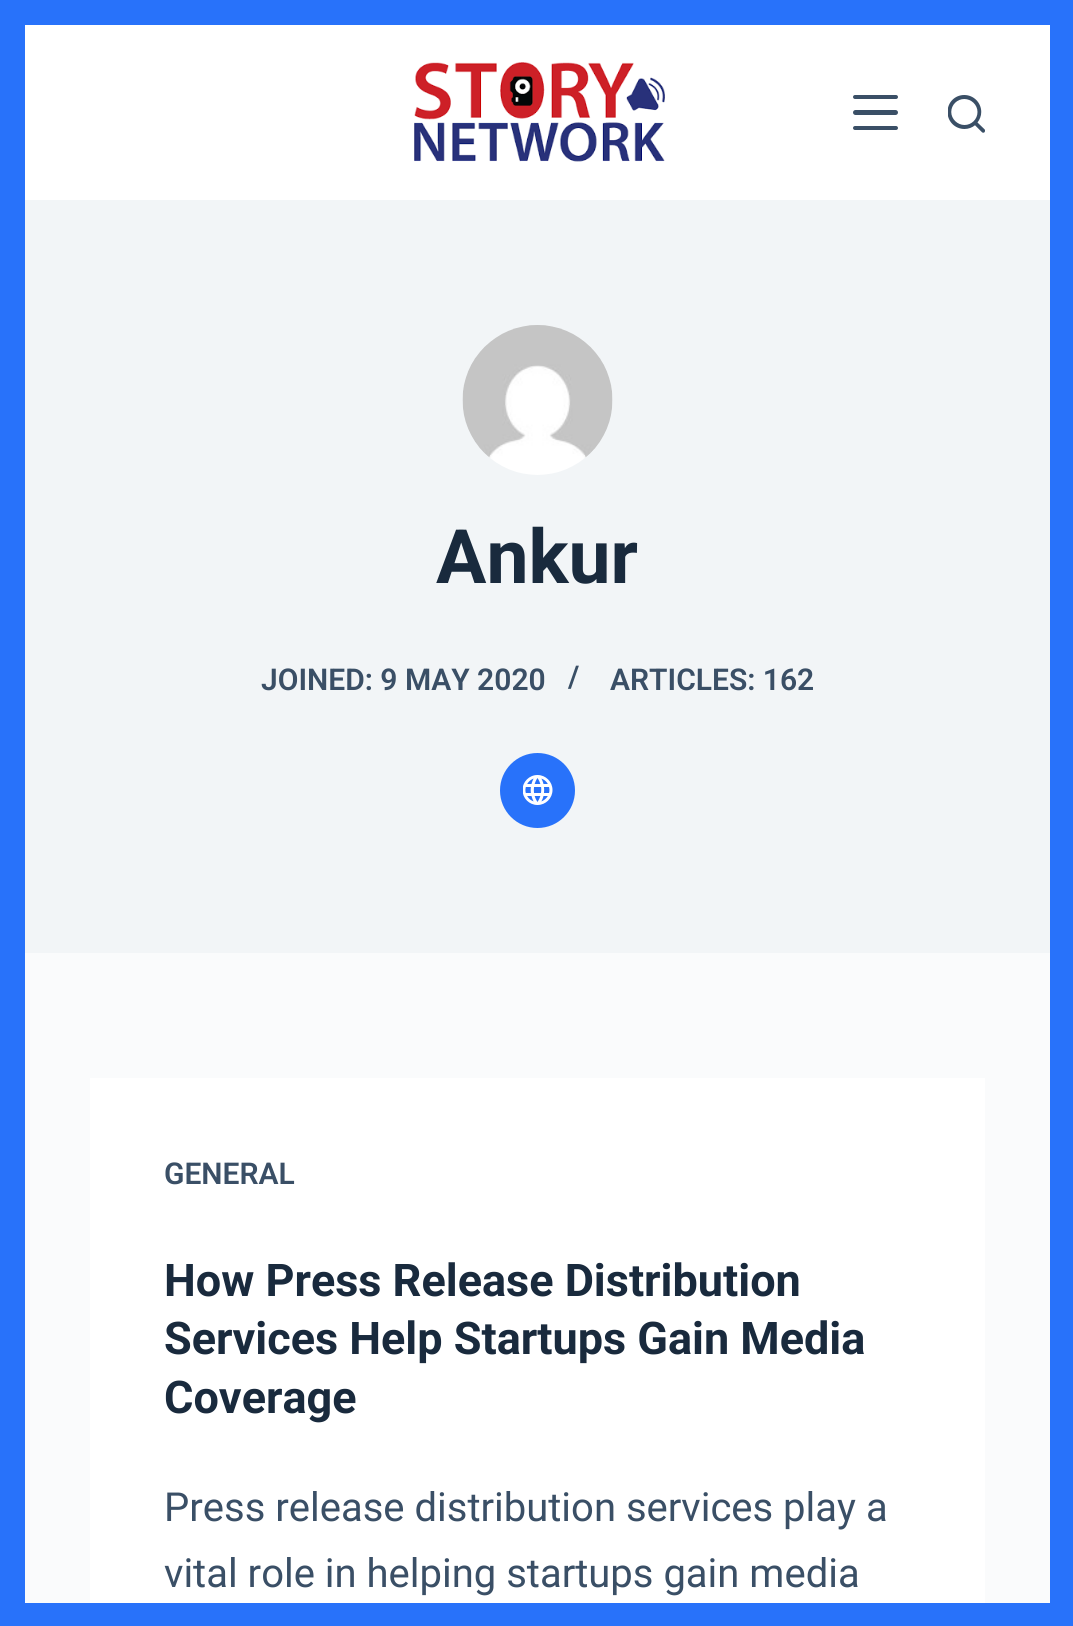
import math
import cairo


def use_color(cr, r, g, b):
  cr.set_source_rgb(r / 255, g / 255, b / 255)

def text(cr, x, y, s, family, size, color, bold=False, italic=False):
  cr.select_font_face(family, cairo.FONT_SLANT_ITALIC if italic else cairo.FONT_SLANT_NORMAL, cairo.FONT_WEIGHT_BOLD if bold else cairo.FONT_WEIGHT_NORMAL)
  cr.set_font_size(size)
  use_color(cr, *color)
  cr.move_to(x, y)
  cr.show_text(s)

def box(cr, x, y, w, h, *color):
  use_color(cr, *color)
  cr.rectangle(x, y, w, h)
  cr.fill()

def round_rect(cr, x, y, w, h, r):
  cr.new_sub_path()
  for i, (u, v) in enumerate([(x + w - r, y + h - r), (x + r, y + h - r), (x + r, y + r), (x + w - r, y + r)]):
    cr.arc(u, v, r, i * math.pi / 2, (i + 1) * math.pi / 2)
  cr.close_path()

def picture(cr, path, x, y, w, h):
  cr.save()
  cr.set_source_surface(cairo.ImageSurface.create_from_png(path), x, y)
  cr.rectangle(x, y, w, h)
  cr.fill()
  cr.restore()

def draw(cr):
  use_color(cr, 250, 251, 252)
  cr.paint()
  cr.rectangle(12.5, 12.5, 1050, 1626)
  use_color(cr, 40, 114, 250)
  cr.set_line_width(25)
  cr.stroke()
  box(cr, 25, 25, 1025, 175, 255, 255, 255)
  picture(cr, "img_01.png", 414, 62, 251, 100)
  use_color(cr, 58, 79, 102)
  round_rect(cr, 853, 95, 45, 4, 2)
  cr.fill()
  round_rect(cr, 853, 110, 45, 5, 2.5)
  cr.fill()
  round_rect(cr, 853, 126, 45, 4, 2)
  cr.fill()
  picture(cr, "img_02.png", 948, 95, 37, 38)
  box(cr, 25, 200, 1025, 753, 242, 245, 247)
  picture(cr, "img_03.png", 462, 325, 151, 150)
  use_color(cr, 40, 114, 250)
  cr.arc(537.5, 790.5, 37.5, 0, 2 * math.pi)
  cr.fill()
  picture(cr, "img_04.png", 523, 775, 30, 30)
  box(cr, 90, 1078, 895, 525, 255, 255, 255)
  box(cr, 25, 1603, 1025, 23, 40, 114, 250)
  text(cr, 436, 583, "Ankur", "Roboto", 75, (25, 42, 61), bold=True)
  text(cr, 261, 690, "JOINED: 9 MAY 2020", "Roboto SemiBold", 30, (58, 79, 102))
  text(cr, 568, 687, "/", "Roboto SemiBold", 30, (58, 79, 102))
  text(cr, 610, 690, "ARTICLES: 162", "Roboto SemiBold", 30, (58, 79, 102))
  text(cr, 164, 1184, "GENERAL", "Roboto SemiBold", 30, (58, 79, 102))
  text(cr, 164, 1296, "How Press Release Distribution", "Roboto", 45, (25, 42, 61), bold=True)
  text(cr, 164, 1354, "Services Help Startups Gain Media", "Roboto", 45, (25, 42, 61), bold=True)
  text(cr, 164, 1413, "Coverage", "Roboto", 45, (25, 42, 61), bold=True)
  text(cr, 164, 1521, "Press release distribution services play a", "Roboto", 40, (58, 79, 102))
  text(cr, 164, 1587, "vital role in helping startups gain media", "Roboto", 40, (58, 79, 102))


surface = cairo.ImageSurface(cairo.FORMAT_RGB24, 1073, 1626)
cr = cairo.Context(surface)
options = cairo.FontOptions()
options.set_hint_metrics(cairo.HINT_METRICS_OFF)
options.set_hint_style(cairo.HINT_STYLE_NONE)
cr.set_font_options(options)
cr.set_miter_limit(4)
draw(cr)
surface.write_to_png("out.png")
